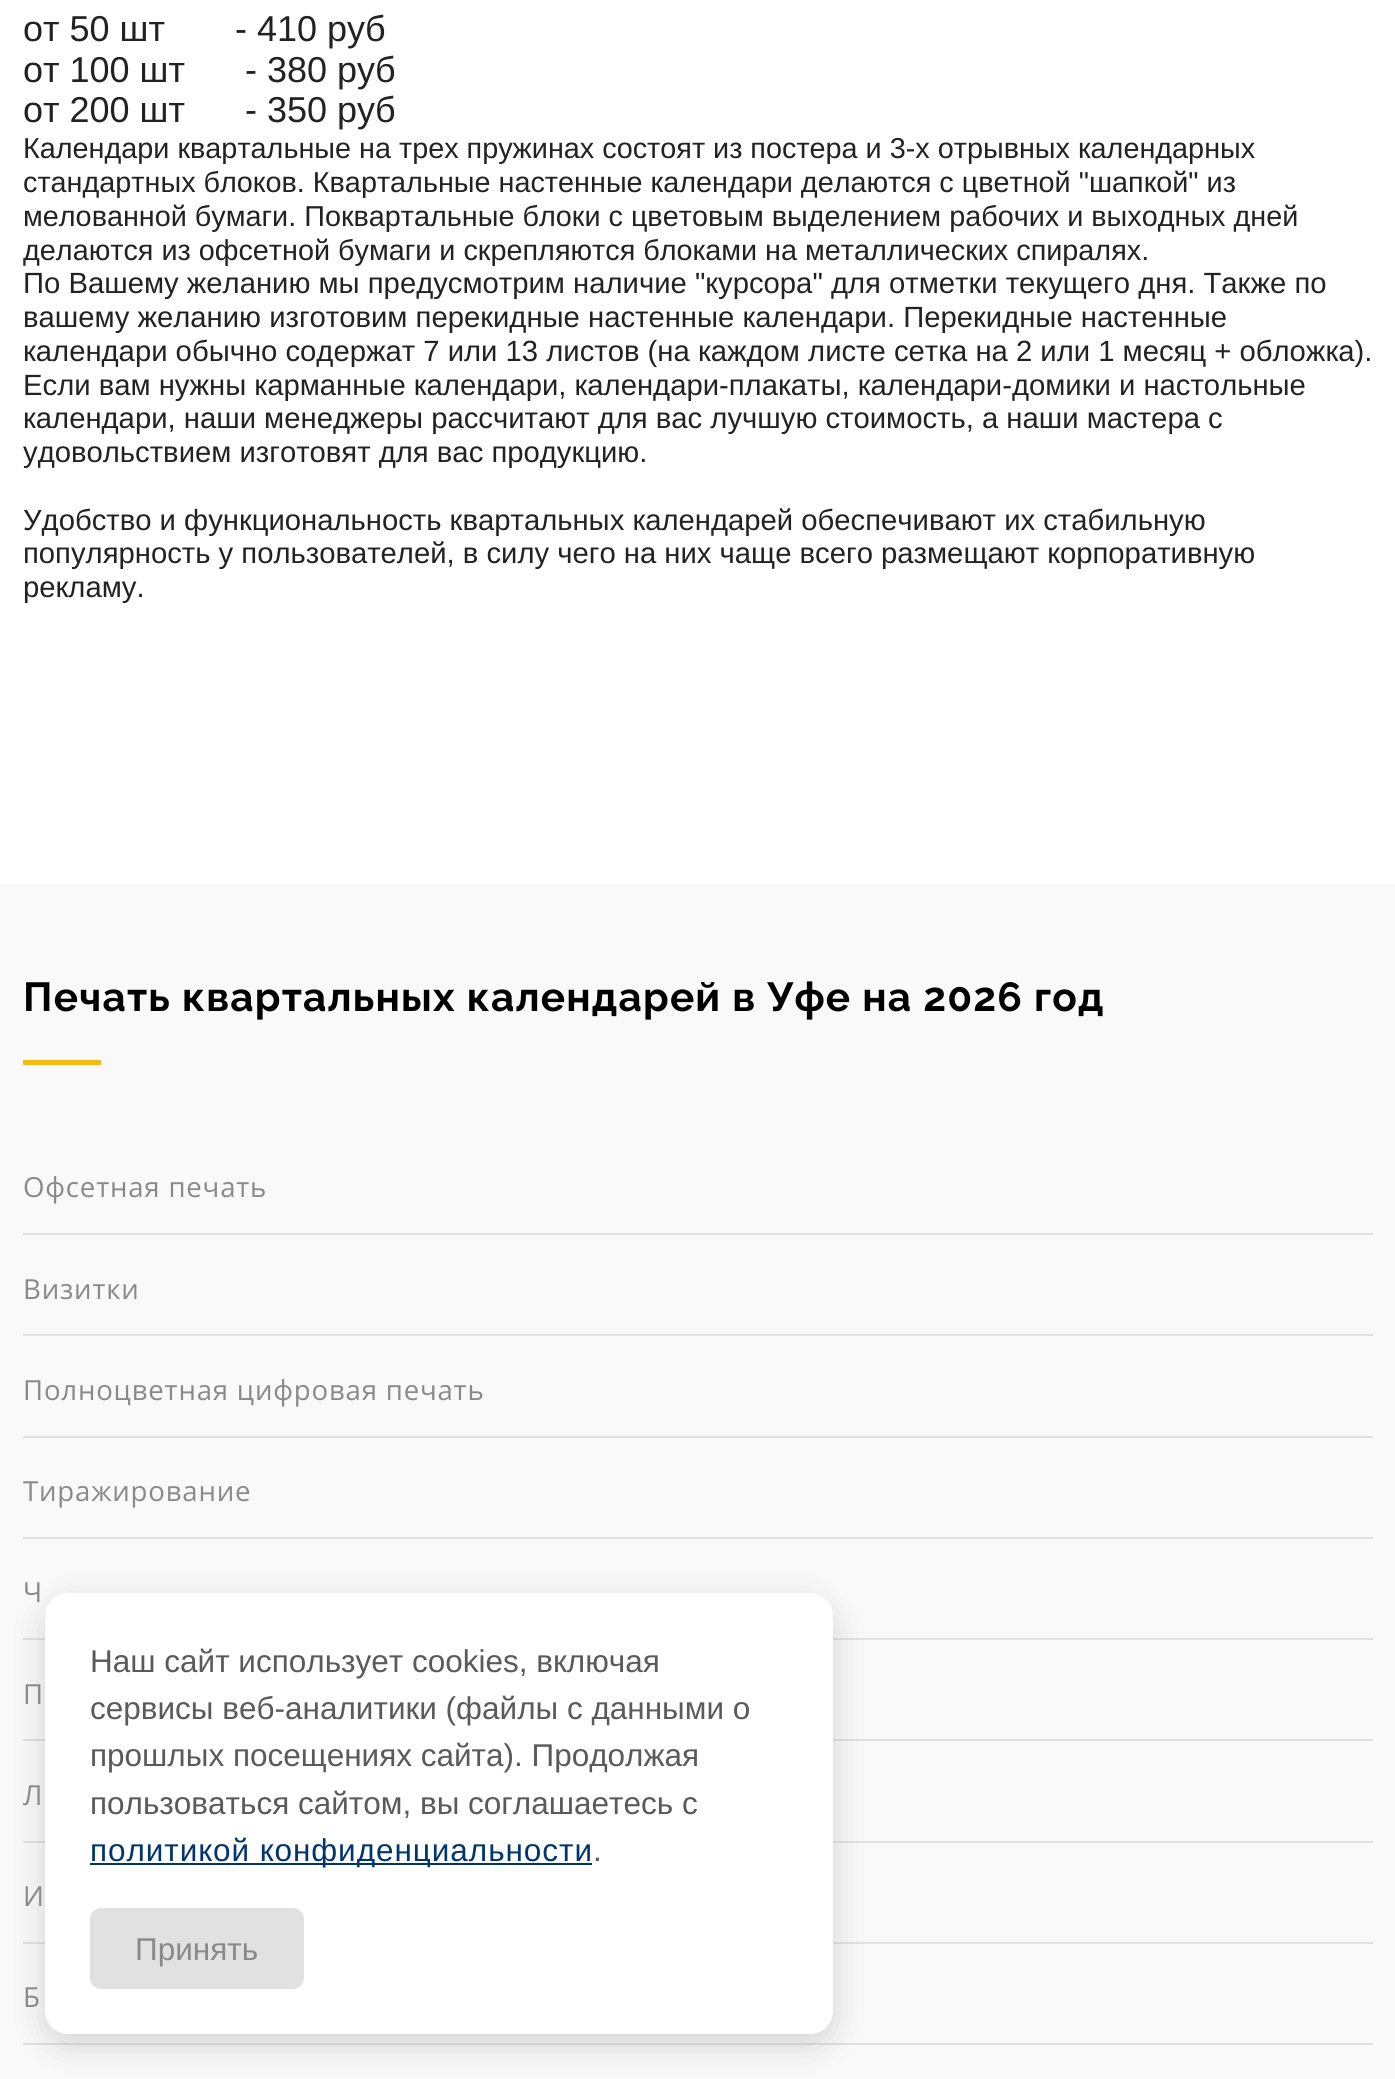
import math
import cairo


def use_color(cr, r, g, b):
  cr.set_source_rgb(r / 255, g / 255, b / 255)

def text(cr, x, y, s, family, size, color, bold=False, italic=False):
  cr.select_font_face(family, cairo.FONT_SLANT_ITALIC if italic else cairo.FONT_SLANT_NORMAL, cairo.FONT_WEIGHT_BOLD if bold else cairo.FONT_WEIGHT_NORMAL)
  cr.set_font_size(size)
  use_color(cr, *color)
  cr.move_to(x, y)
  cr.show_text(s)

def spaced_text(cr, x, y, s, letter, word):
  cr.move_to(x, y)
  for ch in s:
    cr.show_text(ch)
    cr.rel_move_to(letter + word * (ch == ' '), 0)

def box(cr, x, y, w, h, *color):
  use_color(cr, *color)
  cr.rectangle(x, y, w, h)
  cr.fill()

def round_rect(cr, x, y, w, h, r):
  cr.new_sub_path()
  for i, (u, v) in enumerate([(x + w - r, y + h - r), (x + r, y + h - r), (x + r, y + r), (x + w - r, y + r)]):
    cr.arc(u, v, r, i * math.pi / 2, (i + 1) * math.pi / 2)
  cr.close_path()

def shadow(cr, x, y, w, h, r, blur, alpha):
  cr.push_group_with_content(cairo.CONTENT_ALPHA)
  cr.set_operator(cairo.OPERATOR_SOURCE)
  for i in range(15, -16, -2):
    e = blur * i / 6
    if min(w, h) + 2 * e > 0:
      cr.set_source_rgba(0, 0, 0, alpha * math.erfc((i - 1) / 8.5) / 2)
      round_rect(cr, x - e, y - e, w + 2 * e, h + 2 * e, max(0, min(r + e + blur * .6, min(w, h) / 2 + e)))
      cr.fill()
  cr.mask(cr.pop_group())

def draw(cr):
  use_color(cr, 249, 249, 249)
  cr.paint()
  box(cr, 0, 0, 1395, 884, 255, 255, 255)
  box(cr, 23, 1060, 78, 5, 246, 186, 24)
  box(cr, 23, 1233, 1350, 2, 225, 225, 225)
  box(cr, 23, 1334, 1350, 2, 225, 225, 225)
  box(cr, 23, 1436, 1350, 2, 225, 225, 225)
  box(cr, 23, 1537, 1350, 2, 225, 225, 225)
  box(cr, 23, 1638, 1350, 2, 225, 225, 225)
  box(cr, 23, 1739, 1350, 2, 225, 225, 225)
  box(cr, 23, 1841, 1350, 2, 225, 225, 225)
  box(cr, 23, 1942, 1350, 2, 225, 225, 225)
  box(cr, 23, 2043, 1350, 2, 225, 225, 225)
  use_color(cr, 0, 0, 0)
  shadow(cr, 45, 1604, 788, 441, 23, 17, 0.15)
  use_color(cr, 255, 255, 255)
  round_rect(cr, 45, 1593, 788, 441, 23)
  cr.fill()
  box(cr, 90, 1863, 502, 2, 1, 53, 111)
  use_color(cr, 225, 225, 225)
  round_rect(cr, 90, 1908, 214, 81, 11)
  cr.fill()
  text(cr, 23, 41, "от 50 шт       - 410 руб", "Liberation Sans", 36, (34, 34, 34))
  text(cr, 23, 82, "от 100 шт      - 380 руб", "Liberation Sans", 36, (34, 34, 34))
  text(cr, 23, 122, "от 200 шт      - 350 руб", "Liberation Sans", 36, (34, 34, 34))
  text(cr, 23, 158, "Календари квартальные на трех пружинах состоят из постера и 3-х отрывных календарных", "Liberation Sans", 28.8, (34, 34, 34))
  text(cr, 23, 192, "стандартных блоков. Квартальные настенные календари делаются с цветной \"шапкой\" из", "Liberation Sans", 28.8, (34, 34, 34))
  text(cr, 23, 226, "мелованной бумаги. Поквартальные блоки с цветовым выделением рабочих и выходных дней", "Liberation Sans", 28.8, (34, 34, 34))
  text(cr, 23, 260, "делаются из офсетной бумаги и скрепляются блоками на металлических спиралях.", "Liberation Sans", 28.8, (34, 34, 34))
  text(cr, 23, 293, "По Вашему желанию мы предусмотрим наличие \"курсора\" для отметки текущего дня. Также по", "Liberation Sans", 29.25, (34, 34, 34))
  text(cr, 23, 327, "вашему желанию изготовим перекидные настенные календари. Перекидные настенные", "Liberation Sans", 29.25, (34, 34, 34))
  text(cr, 23, 361, "календари обычно содержат 7 или 13 листов (на каждом листе сетка на 2 или 1 месяц + обложка).", "Liberation Sans", 29.25, (34, 34, 34))
  text(cr, 23, 395, "Если вам нужны карманные календари, календари-плакаты, календари-домики и настольные", "Liberation Sans", 29.25, (34, 34, 34))
  text(cr, 23, 428, "календари, наши менеджеры рассчитают для вас лучшую стоимость, а наши мастера с", "Liberation Sans", 29.25, (34, 34, 34))
  text(cr, 23, 462, "удовольствием изготовят для вас продукцию.", "Liberation Sans", 29.25, (34, 34, 34))
  text(cr, 23, 530, "Удобство и функциональность квартальных календарей обеспечивают их стабильную", "Liberation Sans", 29.25, (34, 34, 34))
  text(cr, 23, 563, "популярность у пользователей, в силу чего на них чаще всего размещают корпоративную", "Liberation Sans", 29.25, (34, 34, 34))
  text(cr, 23, 597, "рекламу.", "Liberation Sans", 29.25, (34, 34, 34))
  cr.select_font_face("Raleway Thin")
  cr.set_font_size(40.5)
  use_color(cr, 0, 0, 0)
  spaced_text(cr, 23, 1011, "Печать квартальных календарей в Уфе на 2026 год", 1.2, 0)
  cr.select_font_face("Open Sans")
  cr.set_font_size(27.6)
  use_color(cr, 137, 137, 137)
  spaced_text(cr, 23, 1197, "Офсетная печать", 0.8, 0)
  spaced_text(cr, 23, 1299, "Визитки", 0.8, 0)
  spaced_text(cr, 23, 1400, "Полноцветная цифровая печать", 0.8, 0)
  spaced_text(cr, 23, 1501, "Тиражирование", 0.8, 0)
  spaced_text(cr, 23, 1602, "Ч", 0.8, 0)
  spaced_text(cr, 23, 1704, "П", 0.8, 0)
  spaced_text(cr, 23, 1805, "Л", 0.8, 0)
  spaced_text(cr, 23, 1906, "И", 0.8, 0)
  spaced_text(cr, 23, 2007, "Б", 0.8, 0)
  text(cr, 90, 1672, "Наш сайт использует cookies, включая", "Liberation Sans", 31.5, (90, 90, 90))
  text(cr, 90, 1719, "сервисы веб-аналитики (файлы с данными о", "Liberation Sans", 31.5, (90, 90, 90))
  text(cr, 90, 1766, "прошлых посещениях сайта). Продолжая", "Liberation Sans", 31.5, (90, 90, 90))
  text(cr, 90, 1814, "пользоваться сайтом, вы соглашаетесь с", "Liberation Sans", 31.5, (90, 90, 90))
  use_color(cr, 1, 53, 111)
  spaced_text(cr, 90, 1861, "политикой конфиденциальности", 0.95, 0)
  text(cr, 593, 1861, ".", "Liberation Sans", 31.5, (90, 90, 90))
  text(cr, 135, 1960, "Принять", "Liberation Sans", 31.5, (137, 137, 137))


surface = cairo.ImageSurface(cairo.FORMAT_RGB24, 1395, 2079)
cr = cairo.Context(surface)
options = cairo.FontOptions()
options.set_hint_metrics(cairo.HINT_METRICS_OFF)
options.set_hint_style(cairo.HINT_STYLE_NONE)
cr.set_font_options(options)
cr.set_miter_limit(4)
draw(cr)
surface.write_to_png("out.png")
